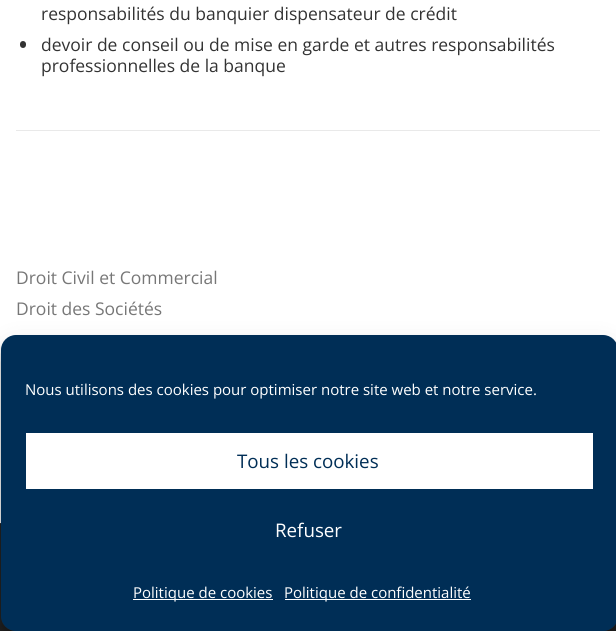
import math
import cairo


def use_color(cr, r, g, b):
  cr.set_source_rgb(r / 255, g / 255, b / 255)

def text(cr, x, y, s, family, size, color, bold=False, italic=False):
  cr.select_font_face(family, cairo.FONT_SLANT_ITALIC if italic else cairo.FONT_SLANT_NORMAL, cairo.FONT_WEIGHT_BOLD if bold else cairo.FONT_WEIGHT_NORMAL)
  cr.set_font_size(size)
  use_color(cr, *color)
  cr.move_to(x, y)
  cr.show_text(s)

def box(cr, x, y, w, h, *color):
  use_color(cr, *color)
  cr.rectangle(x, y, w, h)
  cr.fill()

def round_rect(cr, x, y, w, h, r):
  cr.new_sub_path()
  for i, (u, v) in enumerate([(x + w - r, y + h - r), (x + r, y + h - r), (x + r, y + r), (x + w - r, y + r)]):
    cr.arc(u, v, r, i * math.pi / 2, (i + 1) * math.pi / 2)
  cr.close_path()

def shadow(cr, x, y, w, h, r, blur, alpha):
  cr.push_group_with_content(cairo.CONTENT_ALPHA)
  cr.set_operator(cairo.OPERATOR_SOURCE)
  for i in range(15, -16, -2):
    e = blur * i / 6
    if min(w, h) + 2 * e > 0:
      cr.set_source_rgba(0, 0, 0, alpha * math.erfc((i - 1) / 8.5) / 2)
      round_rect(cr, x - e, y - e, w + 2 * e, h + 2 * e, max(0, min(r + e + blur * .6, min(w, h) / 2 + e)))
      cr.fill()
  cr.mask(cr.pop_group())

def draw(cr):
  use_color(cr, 255, 255, 255)
  cr.paint()
  use_color(cr, 51, 51, 51)
  round_rect(cr, 20, 41, 6, 7, 3)
  cr.fill()
  box(cr, 16, 130, 584, 1, 233, 233, 233)
  box(cr, 0, 524, 616, 107, 34, 34, 34)
  box(cr, 0, 523, 1, 1, 51, 51, 51)
  cr.save()
  cr.set_fill_rule(cairo.FILL_RULE_EVEN_ODD)
  cr.new_path()
  cr.move_to(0, 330)
  cr.line_to(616, 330)
  cr.line_to(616, 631)
  cr.line_to(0, 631)
  cr.close_path()
  cr.move_to(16, 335)
  cr.line_to(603, 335)
  cr.curve_to(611.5, 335, 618, 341.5, 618, 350)
  cr.line_to(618, 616)
  cr.curve_to(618, 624.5, 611.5, 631, 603, 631)
  cr.line_to(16, 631)
  cr.curve_to(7.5, 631, 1, 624.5, 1, 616)
  cr.line_to(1, 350)
  cr.curve_to(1, 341.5, 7.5, 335, 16, 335)
  cr.close_path()
  cr.clip()
  use_color(cr, 0, 0, 0)
  shadow(cr, 1, 343, 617, 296, 15, 4, 0.23)
  cr.restore()
  cr.save()
  cr.set_fill_rule(cairo.FILL_RULE_EVEN_ODD)
  cr.new_path()
  cr.move_to(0, 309)
  cr.line_to(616, 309)
  cr.line_to(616, 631)
  cr.line_to(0, 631)
  cr.close_path()
  cr.move_to(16, 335)
  cr.line_to(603, 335)
  cr.curve_to(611.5, 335, 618, 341.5, 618, 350)
  cr.line_to(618, 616)
  cr.curve_to(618, 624.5, 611.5, 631, 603, 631)
  cr.line_to(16, 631)
  cr.curve_to(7.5, 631, 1, 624.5, 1, 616)
  cr.line_to(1, 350)
  cr.curve_to(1, 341.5, 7.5, 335, 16, 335)
  cr.close_path()
  cr.clip()
  use_color(cr, 0, 0, 0)
  shadow(cr, 1, 348, 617, 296, 15, 12.5, 0.19)
  cr.restore()
  use_color(cr, 0, 46, 86)
  round_rect(cr, 1, 335, 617, 296, 15)
  cr.fill()
  box(cr, 26, 433, 567, 56, 255, 255, 255)
  box(cr, 133, 599, 140, 1, 255, 255, 255)
  box(cr, 285, 599, 186, 1, 255, 255, 255)
  text(cr, 41, 20, "responsabilités du banquier dispensateur de crédit", "Open Sans", 17.5, (51, 51, 51))
  text(cr, 41, 51, "devoir de conseil ou de mise en garde et autres responsabilités", "Open Sans", 17.5, (51, 51, 51))
  text(cr, 41, 72, "professionnelles de la banque", "Open Sans", 17.5, (51, 51, 51))
  text(cr, 16, 284, "Droit Civil et Commercial", "Open Sans", 17.5, (119, 119, 119))
  text(cr, 16, 315, "Droit des Sociétés", "Open Sans", 17.5, (119, 119, 119))
  text(cr, 25, 395, "Nous utilisons des cookies pour optimiser notre site web et notre service.", "Open Sans", 15, (255, 255, 255))
  text(cr, 237, 468, "Tous les cookies", "Open Sans", 18.75, (0, 46, 86))
  text(cr, 275, 537, "Refuser", "Open Sans", 18.75, (255, 255, 255))
  text(cr, 133, 598, "Politique de cookies", "Open Sans", 15, (255, 255, 255))
  text(cr, 284, 598, "Politique de confidentialité", "Open Sans", 15, (255, 255, 255))


surface = cairo.ImageSurface(cairo.FORMAT_RGB24, 616, 631)
cr = cairo.Context(surface)
options = cairo.FontOptions()
options.set_hint_metrics(cairo.HINT_METRICS_OFF)
options.set_hint_style(cairo.HINT_STYLE_NONE)
cr.set_font_options(options)
cr.set_miter_limit(4)
draw(cr)
surface.write_to_png("out.png")
